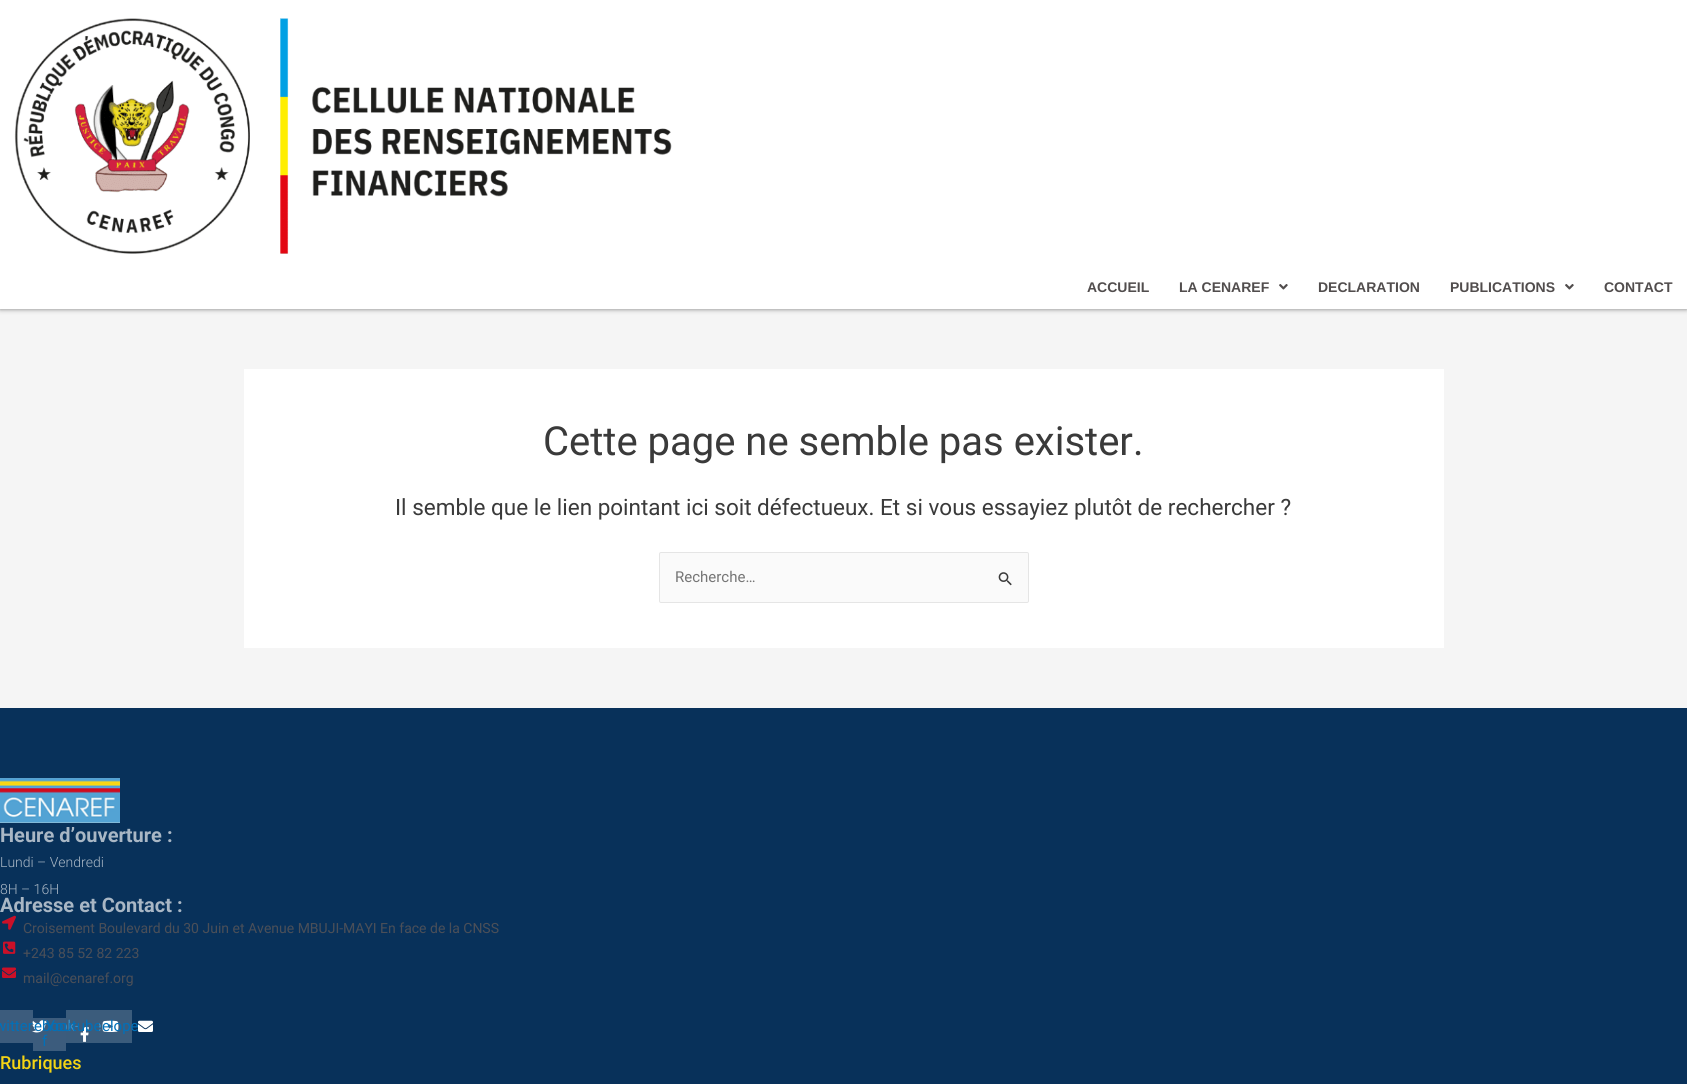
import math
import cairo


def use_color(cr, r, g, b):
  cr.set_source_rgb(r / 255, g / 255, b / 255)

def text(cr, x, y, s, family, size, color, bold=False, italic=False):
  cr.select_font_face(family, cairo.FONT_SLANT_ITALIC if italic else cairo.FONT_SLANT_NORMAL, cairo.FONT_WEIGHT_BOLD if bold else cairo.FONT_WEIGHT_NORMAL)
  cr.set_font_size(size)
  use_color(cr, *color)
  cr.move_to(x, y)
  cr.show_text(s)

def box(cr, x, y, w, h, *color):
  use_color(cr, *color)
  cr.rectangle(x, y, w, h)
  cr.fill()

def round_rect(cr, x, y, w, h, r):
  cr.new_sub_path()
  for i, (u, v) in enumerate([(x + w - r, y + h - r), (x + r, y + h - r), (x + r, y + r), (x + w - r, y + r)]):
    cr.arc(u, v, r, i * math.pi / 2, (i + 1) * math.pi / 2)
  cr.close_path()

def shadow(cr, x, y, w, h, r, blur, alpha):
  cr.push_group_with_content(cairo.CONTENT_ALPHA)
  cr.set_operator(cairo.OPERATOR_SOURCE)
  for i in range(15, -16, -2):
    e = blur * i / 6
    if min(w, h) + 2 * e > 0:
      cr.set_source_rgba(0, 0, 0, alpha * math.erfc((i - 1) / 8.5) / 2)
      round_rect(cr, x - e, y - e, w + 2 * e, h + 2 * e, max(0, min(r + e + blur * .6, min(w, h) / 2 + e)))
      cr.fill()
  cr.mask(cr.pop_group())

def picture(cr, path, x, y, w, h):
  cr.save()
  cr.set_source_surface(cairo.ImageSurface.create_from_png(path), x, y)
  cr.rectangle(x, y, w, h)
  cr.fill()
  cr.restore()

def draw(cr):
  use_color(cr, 245, 245, 245)
  cr.paint()
  use_color(cr, 0, 0, 0)
  shadow(cr, 0, 0, 1687, 309, 0, 2.5, 0.5)
  box(cr, 0, 0, 1687, 309, 255, 255, 255)
  picture(cr, "img_01.png", 14, 18, 658, 236)
  picture(cr, "img_02.png", 1279, 284, 9, 6)
  picture(cr, "img_02.png", 1565, 284, 9, 6)
  box(cr, 244, 369, 1200, 279, 255, 255, 255)
  use_color(cr, 250, 250, 250)
  round_rect(cr, 659.5, 552.5, 369, 50, 1.5)
  cr.fill_preserve()
  use_color(cr, 229, 229, 229)
  cr.set_line_width(1)
  cr.stroke()
  picture(cr, "img_03.png", 998, 572, 14, 14)
  box(cr, 0, 708, 1687, 376, 8, 49, 90)
  box(cr, 33, 1018, 33, 33, 60, 92, 125)
  picture(cr, "img_04.png", 0, 778, 120, 45)
  picture(cr, "img_05.png", 2, 915, 14, 15)
  picture(cr, "img_06.png", 3, 941, 13, 13)
  picture(cr, "img_07.png", 2, 967, 14, 11)
  picture(cr, "img_08.png", 80, 1026, 9, 16)
  box(cr, 0, 1010, 33, 33, 60, 92, 125)
  picture(cr, "img_10.png", 102, 1020, 17, 12)
  picture(cr, "img_11.png", 138, 1020, 15, 12)
  text(cr, 1087, 292, "ACCUEIL", "Liberation Sans", 14, (81, 77, 77), bold=True)
  text(cr, 1179, 292, "LA CENAREF", "Liberation Sans", 14, (81, 77, 77), bold=True)
  text(cr, 1318, 292, "DECLARATION", "Liberation Sans", 14, (81, 77, 77), bold=True)
  text(cr, 1450, 292, "PUBLICATIONS", "Liberation Sans", 14, (81, 77, 77), bold=True)
  text(cr, 1604, 292, "CONTACT", "Liberation Sans", 14, (81, 77, 77), bold=True)
  text(cr, 543, 455, "Cette page ne semble pas exister.", "Roboto", 40, (58, 58, 58))
  text(cr, 395, 515, "Il semble que le lien pointant ici soit défectueux. Et si vous essayiez plutôt de rechercher ?", "Roboto", 22.5, (58, 58, 58))
  text(cr, 675, 582, "Recherche…", "Roboto", 15, (117, 117, 117))
  text(cr, 0, 842, "Heure d’ouverture :", "Roboto", 20, (169, 183, 197), bold=True)
  text(cr, 0, 867, "Lundi – Vendredi", "Roboto Light", 14, (169, 183, 197))
  text(cr, 0, 894, "8H – 16H", "Roboto Light", 14, (169, 183, 197))
  text(cr, 0, 912, "Adresse et Contact :", "Roboto", 20, (169, 183, 197), bold=True)
  text(cr, 23, 933, "Croisement Boulevard du 30 Juin et Avenue MBUJI-MAYI En face de la CNSS", "Roboto", 14, (75, 79, 88))
  text(cr, 23, 958, "+243 85 52 82 223", "Roboto", 14, (75, 79, 88))
  text(cr, 23, 983, "mail@cenaref.org", "Roboto", 14, (75, 79, 88))
  text(cr, 42, 1046, "f", "Roboto", 15, (1, 112, 185))
  text(cr, -5, 1031, "witter", "Roboto", 15, (1, 112, 185))
  picture(cr, "img_09.png", 32, 1020, 15, 13)
  text(cr, 34, 1031, "ebook-", "Roboto", 15, (1, 112, 185))
  cr.set_source_rgba(1, 1, 1, 0.21)
  cr.rectangle(66, 1010, 33, 33)
  cr.fill()
  text(cr, 46, 1031, "Youtube", "Roboto", 15, (1, 112, 185))
  cr.set_source_rgba(1, 1, 1, 0.21)
  cr.rectangle(99, 1010, 33, 33)
  cr.fill()
  text(cr, 102, 1031, "elope", "Roboto", 15, (1, 112, 185))
  text(cr, 0, 1069, "Rubriques", "Roboto Medium", 18, (244, 212, 20))


surface = cairo.ImageSurface(cairo.FORMAT_RGB24, 1687, 1084)
cr = cairo.Context(surface)
options = cairo.FontOptions()
options.set_hint_metrics(cairo.HINT_METRICS_OFF)
options.set_hint_style(cairo.HINT_STYLE_NONE)
cr.set_font_options(options)
cr.set_miter_limit(4)
draw(cr)
surface.write_to_png("out.png")
